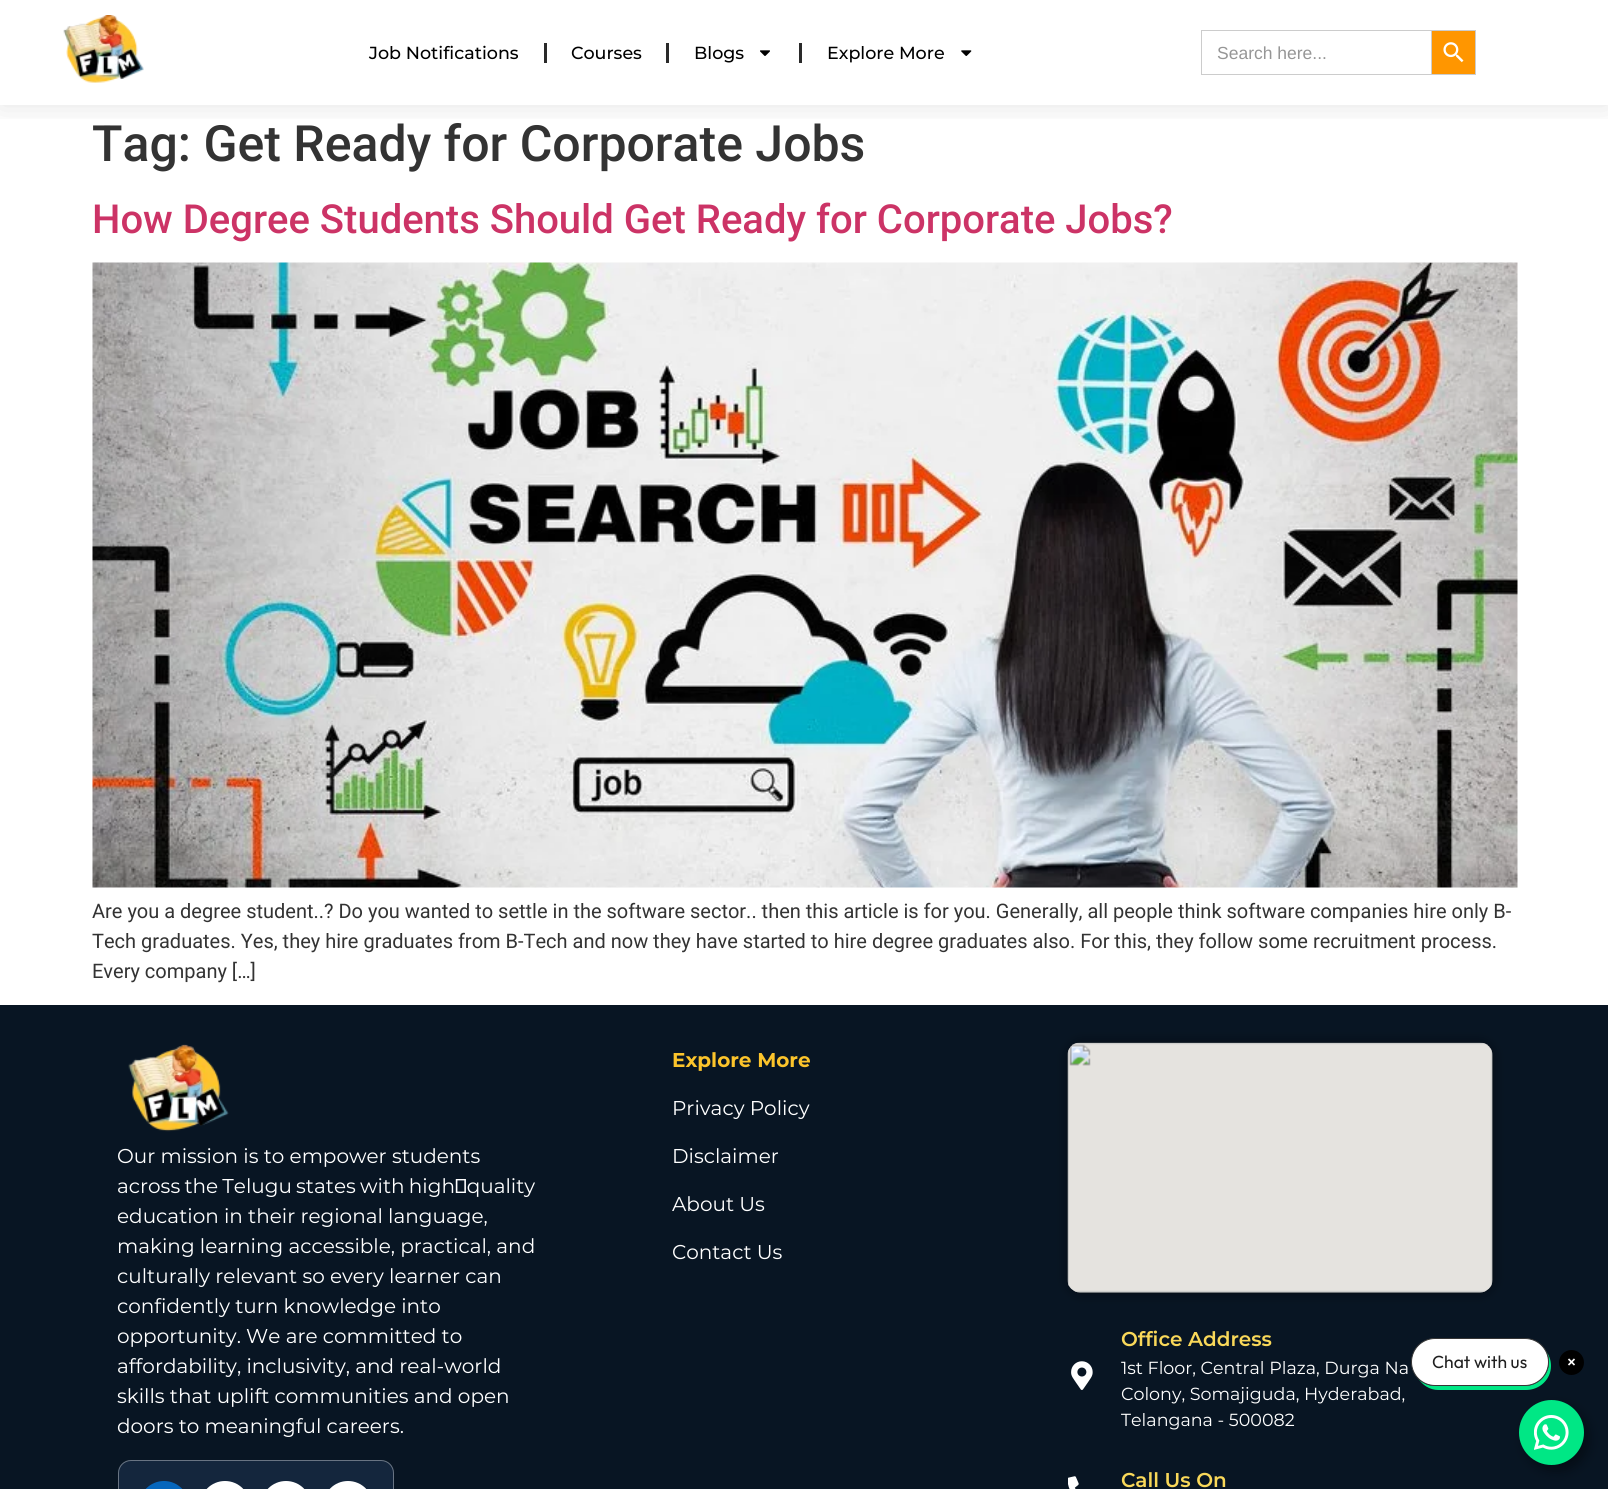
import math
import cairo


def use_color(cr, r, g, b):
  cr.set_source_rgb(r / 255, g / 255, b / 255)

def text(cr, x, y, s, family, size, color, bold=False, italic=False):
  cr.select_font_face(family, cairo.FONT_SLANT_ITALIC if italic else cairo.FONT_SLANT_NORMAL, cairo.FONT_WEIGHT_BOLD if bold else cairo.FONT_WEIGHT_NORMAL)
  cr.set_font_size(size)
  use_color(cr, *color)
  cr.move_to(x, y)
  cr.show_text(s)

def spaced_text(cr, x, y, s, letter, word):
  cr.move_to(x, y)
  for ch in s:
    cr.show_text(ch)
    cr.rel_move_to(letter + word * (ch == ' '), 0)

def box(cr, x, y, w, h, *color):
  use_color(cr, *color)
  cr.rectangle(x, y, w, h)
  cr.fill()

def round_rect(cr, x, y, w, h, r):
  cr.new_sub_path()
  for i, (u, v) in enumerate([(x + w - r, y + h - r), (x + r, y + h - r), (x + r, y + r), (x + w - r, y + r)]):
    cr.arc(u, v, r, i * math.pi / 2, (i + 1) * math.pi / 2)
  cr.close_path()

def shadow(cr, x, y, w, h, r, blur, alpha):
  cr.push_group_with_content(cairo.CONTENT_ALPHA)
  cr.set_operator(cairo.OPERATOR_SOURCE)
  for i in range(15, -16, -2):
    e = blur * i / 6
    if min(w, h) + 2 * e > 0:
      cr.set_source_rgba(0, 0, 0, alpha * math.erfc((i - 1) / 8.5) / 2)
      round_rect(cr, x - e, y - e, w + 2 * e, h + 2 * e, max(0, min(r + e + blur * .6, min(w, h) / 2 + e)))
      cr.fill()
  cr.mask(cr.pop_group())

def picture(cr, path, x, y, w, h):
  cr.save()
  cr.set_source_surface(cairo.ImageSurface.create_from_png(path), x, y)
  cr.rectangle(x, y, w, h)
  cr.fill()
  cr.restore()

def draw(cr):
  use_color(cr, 255, 255, 255)
  cr.paint()
  cr.save()
  cr.rectangle(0, 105, 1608, 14)
  cr.clip()
  use_color(cr, 0, 0, 0)
  shadow(cr, 0, 0, 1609, 105, 0, 15, 0.11)
  cr.restore()
  picture(cr, "img_01.png", 63, 15, 81, 68)
  box(cr, 544, 43, 3, 20, 42, 42, 42)
  box(cr, 666, 43, 3, 20, 42, 42, 42)
  picture(cr, "img_02.png", 760, 50, 10, 6)
  box(cr, 799, 43, 3, 20, 42, 42, 42)
  picture(cr, "img_03.png", 961, 50, 11, 6)
  box(cr, 1201, 30, 230, 1, 204, 204, 204)
  box(cr, 1201, 74, 230, 1, 204, 204, 204)
  box(cr, 1201, 30, 1, 45, 204, 204, 204)
  use_color(cr, 255, 150, 0)
  cr.rectangle(1431.5, 30.5, 44, 44)
  cr.fill_preserve()
  use_color(cr, 204, 204, 204)
  cr.set_line_width(1)
  cr.stroke()
  picture(cr, "img_04.png", 1443, 42, 21, 21)
  picture(cr, "img_05.png", 92, 262, 1426, 626)
  box(cr, 0, 1005, 1608, 484, 8, 21, 35)
  picture(cr, "img_06.png", 128, 1044, 101, 88)
  use_color(cr, 20, 38, 61)
  round_rect(cr, 118, 1460, 276, 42, 13)
  cr.fill()
  round_rect(cr, 118.5, 1460.5, 275, 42, 12.5)
  cr.set_source_rgba(1, 1, 1, 0.36)
  cr.stroke()
  use_color(cr, 6, 102, 188)
  round_rect(cr, 139, 1481, 50, 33, 25)
  cr.fill()
  use_color(cr, 255, 255, 255)
  round_rect(cr, 200, 1481, 50, 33, 25)
  cr.fill()
  round_rect(cr, 261, 1481, 50, 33, 25)
  cr.fill()
  round_rect(cr, 323, 1481, 50, 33, 25)
  cr.fill()
  use_color(cr, 0, 0, 0)
  shadow(cr, 1068, 1043, 425, 250, 13, 6, 0.5)
  picture(cr, "img_07.png", 1067, 1042, 426, 251)
  picture(cr, "img_08.png", 1071, 1361, 22, 29)
  picture(cr, "img_09.png", 1068, 1476, 11, 13)
  shadow(cr, 1524, 1406, 65, 65, 32.5, 6, 0.4)
  use_color(cr, 0, 231, 133)
  cr.new_path()
  cr.move_to(1418, 1378)
  cr.curve_to(1422, 1385, 1430, 1390, 1438, 1390)
  cr.line_to(1526, 1390)
  cr.curve_to(1540, 1390, 1551, 1379, 1551, 1366)
  cr.curve_to(1551, 1360, 1549, 1355, 1546, 1351)
  cr.curve_to(1548, 1354, 1549, 1358, 1549, 1362)
  cr.curve_to(1549, 1375, 1538, 1386, 1524, 1386)
  cr.line_to(1436, 1386)
  cr.curve_to(1428, 1386, 1422, 1383, 1418, 1378)
  cr.close_path()
  cr.fill()
  use_color(cr, 255, 255, 255)
  round_rect(cr, 1411.5, 1338.5, 137, 47, 23.5)
  cr.fill_preserve()
  use_color(cr, 54, 54, 54)
  cr.stroke()
  use_color(cr, 0, 0, 0)
  cr.arc(1571.5, 1362.5, 12.5, 0, 2 * math.pi)
  cr.fill()
  cr.new_path()
  cr.move_to(1568.5, 1359)
  cr.line_to(1574.5, 1365)
  cr.move_to(1568.5, 1365)
  cr.line_to(1574.5, 1359)
  use_color(cr, 255, 255, 255)
  cr.set_line_width(1.7)
  cr.stroke()
  use_color(cr, 0, 231, 133)
  cr.arc(1551.5, 1432.5, 32.5, 0, 2 * math.pi)
  cr.fill()
  picture(cr, "img_10.png", 1534, 1415, 35, 35)
  text(cr, 369, 59, "Job Notifications", "Montserrat Medium", 17.5, (0, 0, 0))
  text(cr, 571, 59, "Courses", "Montserrat Medium", 17.5, (0, 0, 0))
  text(cr, 694, 59, "Blogs", "Montserrat Medium", 17.5, (0, 0, 0))
  text(cr, 827, 59, "Explore More", "Montserrat Medium", 17.5, (0, 0, 0))
  text(cr, 1217, 59, "Search here...", "Liberation Sans", 17.5, (150, 150, 150))
  text(cr, 92, 161, "Tag: Get Ready for Corporate Jobs", "Roboto Medium", 50, (51, 51, 51))
  text(cr, 92, 233, "How Degree Students Should Get Ready for Corporate Jobs?", "Roboto Medium", 40, (204, 51, 102))
  text(cr, 92, 918, "Are you a degree student..? Do you wanted to settle in the software sector.. then this article is for you. Generally, all people think software companies hire only B-", "Roboto", 20, (51, 51, 51))
  text(cr, 92, 948, "Tech graduates. Yes, they hire graduates from B-Tech and now they have started to hire degree graduates also. For this, they follow some recruitment process.", "Roboto", 20, (51, 51, 51))
  text(cr, 92, 978, "Every company […]", "Roboto", 20, (51, 51, 51))
  text(cr, 117, 1163, "Our mission is to empower students", "Montserrat", 20, (255, 255, 255))
  spaced_text(cr, 117, 1193, "across the Telugu states with high‑quality", 0, -1)
  text(cr, 117, 1223, "education in their regional language,", "Montserrat", 20, (255, 255, 255))
  text(cr, 117, 1253, "making learning accessible, practical, and", "Montserrat", 20, (255, 255, 255))
  text(cr, 117, 1283, "culturally relevant so every learner can", "Montserrat", 20, (255, 255, 255))
  text(cr, 117, 1313, "confidently turn knowledge into", "Montserrat", 20, (255, 255, 255))
  text(cr, 117, 1343, "opportunity. We are committed to", "Montserrat", 20, (255, 255, 255))
  text(cr, 117, 1373, "affordability, inclusivity, and real-world", "Montserrat", 20, (255, 255, 255))
  text(cr, 117, 1403, "skills that uplift communities and open", "Montserrat", 20, (255, 255, 255))
  text(cr, 117, 1433, "doors to meaningful careers.", "Montserrat", 20, (255, 255, 255))
  text(cr, 672, 1067, "Explore More", "Montserrat", 20, (252, 196, 43), bold=True)
  text(cr, 672, 1115, "Privacy Policy", "Montserrat", 20, (255, 255, 255))
  text(cr, 672, 1163, "Disclaimer", "Montserrat", 20, (255, 255, 255))
  text(cr, 672, 1211, "About Us", "Montserrat", 20, (255, 255, 255))
  text(cr, 672, 1259, "Contact Us", "Montserrat", 20, (255, 255, 255))
  text(cr, 1121, 1346, "Office Address", "Montserrat SemiBold", 20, (249, 216, 89))
  text(cr, 1121, 1374, "1st Floor, Central Plaza, Durga Na", "Montserrat", 17.5, (255, 255, 255))
  text(cr, 1121, 1400, "Colony, Somajiguda, Hyderabad,", "Montserrat", 17.5, (255, 255, 255))
  text(cr, 1121, 1426, "Telangana - 500082", "Montserrat", 17.5, (255, 255, 255))
  text(cr, 1121, 1487, "Call Us On", "Montserrat SemiBold", 20, (249, 216, 89))
  text(cr, 1432, 1368, "Chat with us", "Outfit", 17.5, (32, 32, 32))


surface = cairo.ImageSurface(cairo.FORMAT_RGB24, 1608, 1489)
cr = cairo.Context(surface)
options = cairo.FontOptions()
options.set_hint_metrics(cairo.HINT_METRICS_OFF)
options.set_hint_style(cairo.HINT_STYLE_NONE)
cr.set_font_options(options)
cr.set_miter_limit(4)
draw(cr)
surface.write_to_png("out.png")
